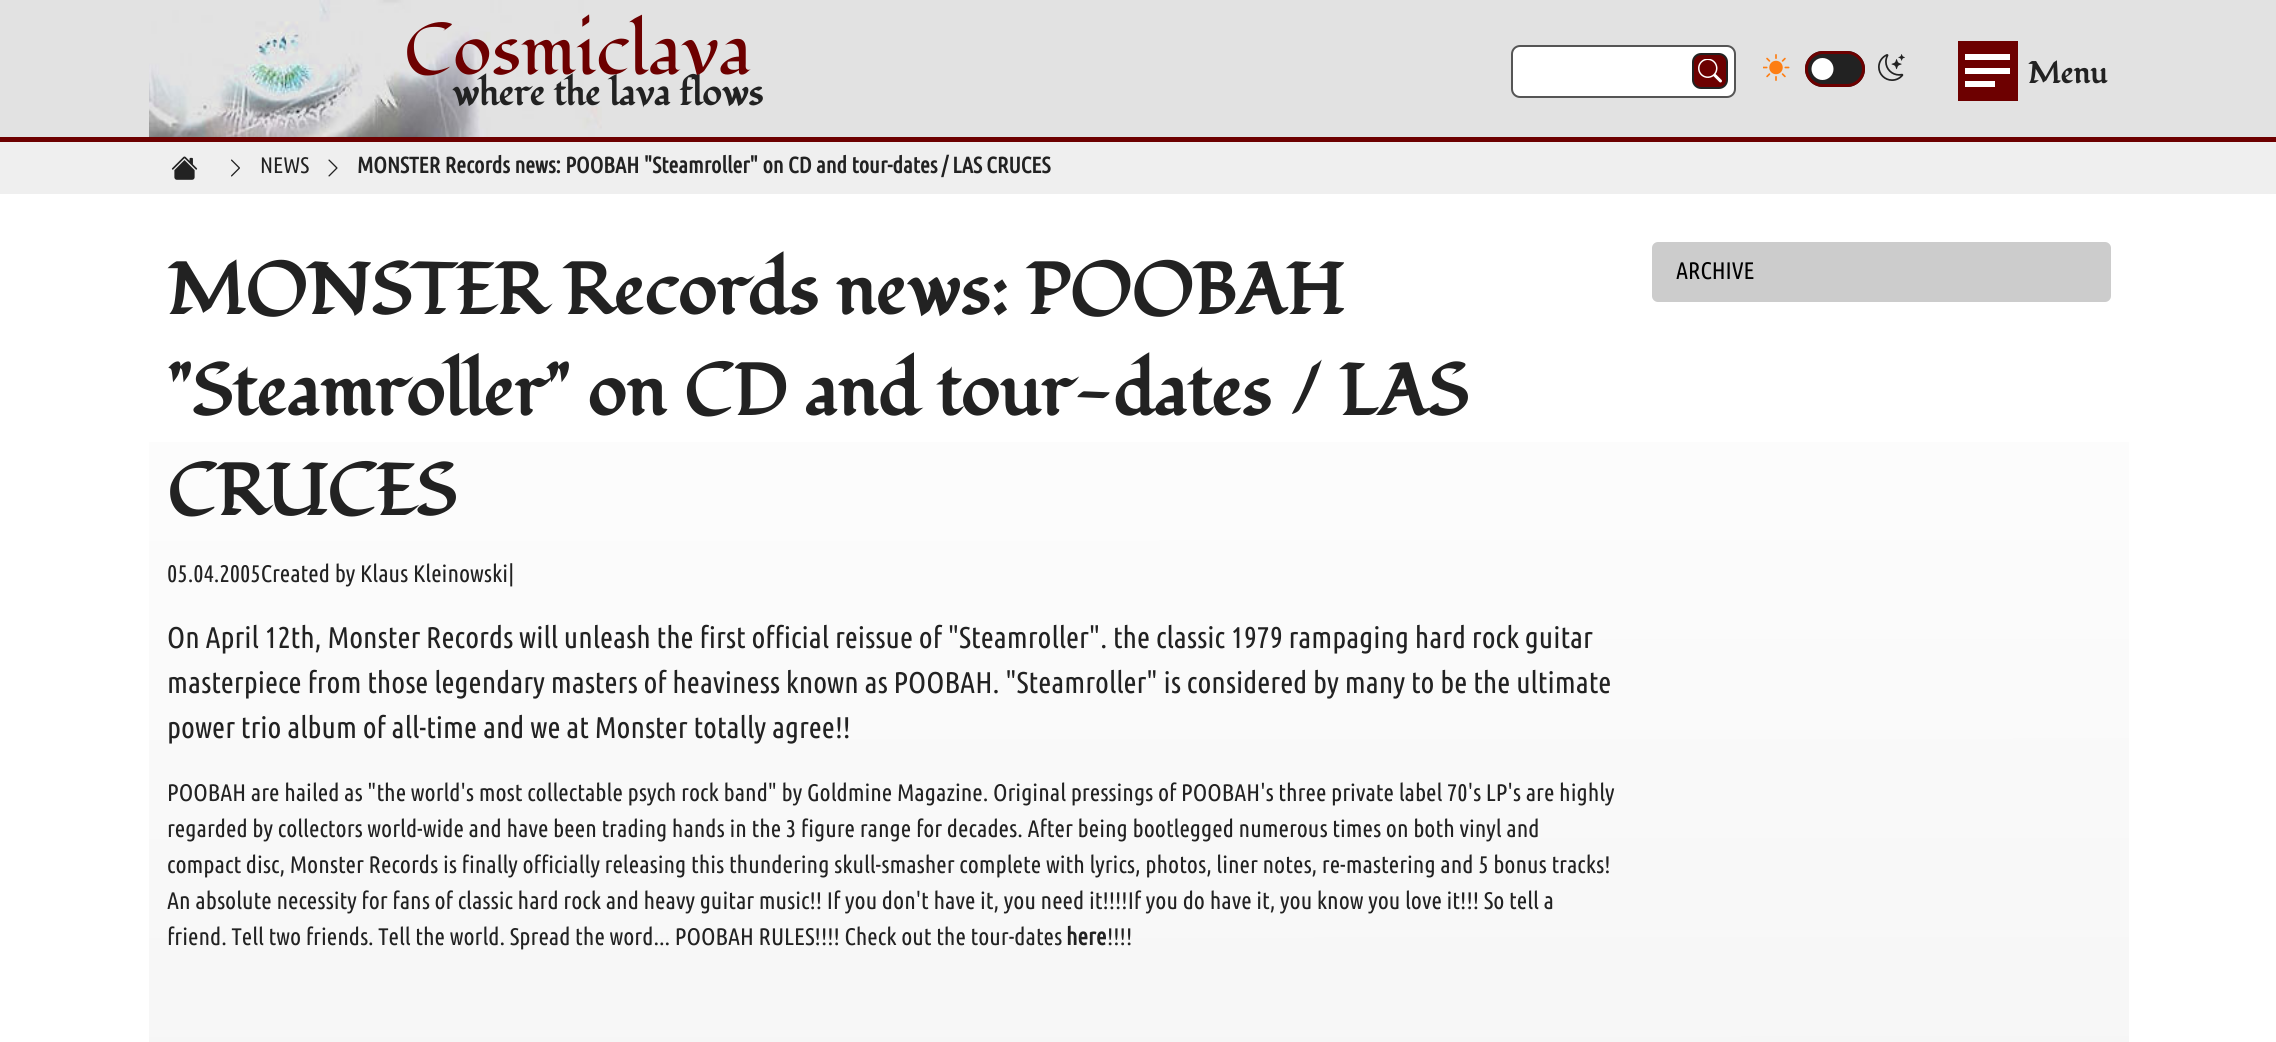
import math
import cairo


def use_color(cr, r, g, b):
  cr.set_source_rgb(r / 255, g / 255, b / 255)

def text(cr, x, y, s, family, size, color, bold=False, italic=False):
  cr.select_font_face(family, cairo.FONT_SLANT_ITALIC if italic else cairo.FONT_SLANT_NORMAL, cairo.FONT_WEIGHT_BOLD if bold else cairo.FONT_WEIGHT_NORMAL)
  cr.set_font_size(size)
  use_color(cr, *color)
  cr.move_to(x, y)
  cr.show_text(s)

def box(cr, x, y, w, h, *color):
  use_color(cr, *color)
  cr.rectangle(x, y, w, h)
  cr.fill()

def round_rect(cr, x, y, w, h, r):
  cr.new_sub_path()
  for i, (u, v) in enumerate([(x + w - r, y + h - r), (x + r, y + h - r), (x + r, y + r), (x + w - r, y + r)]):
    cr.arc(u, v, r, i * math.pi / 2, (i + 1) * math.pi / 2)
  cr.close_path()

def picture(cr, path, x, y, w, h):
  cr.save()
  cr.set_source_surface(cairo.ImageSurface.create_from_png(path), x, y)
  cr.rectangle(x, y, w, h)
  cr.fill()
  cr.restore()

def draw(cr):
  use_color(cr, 255, 255, 255)
  cr.paint()
  box(cr, 0, 0, 2276, 137, 226, 226, 226)
  picture(cr, "img_01.png", 149, 0, 453, 137)
  use_color(cr, 255, 255, 255)
  round_rect(cr, 1512, 46, 223, 51, 8)
  cr.fill_preserve()
  use_color(cr, 85, 85, 85)
  cr.stroke()
  use_color(cr, 109, 0, 0)
  round_rect(cr, 1693, 54, 34, 34, 8)
  cr.fill_preserve()
  use_color(cr, 34, 34, 34)
  cr.stroke()
  picture(cr, "img_02.png", 1698, 59, 24, 24)
  round_rect(cr, 1805, 51, 60, 36, 18)
  cr.fill()
  use_color(cr, 255, 255, 255)
  cr.arc(1822.5, 69, 11, 0, 2 * math.pi)
  cr.fill()
  round_rect(cr, 1806.5, 52.5, 57, 33, 16.5)
  use_color(cr, 109, 0, 0)
  cr.set_line_width(3)
  cr.stroke()
  picture(cr, "img_03.png", 1763, 54, 27, 27)
  picture(cr, "img_04.png", 1878, 54, 27, 27)
  box(cr, 1958, 41, 60, 60, 109, 0, 0)
  box(cr, 1965, 54, 45, 6, 255, 255, 255)
  box(cr, 1965, 68, 45, 6, 255, 255, 255)
  box(cr, 1965, 81, 30, 6, 255, 255, 255)
  box(cr, 0, 137, 2276, 5, 109, 0, 0)
  box(cr, 0, 142, 2276, 52, 239, 239, 239)
  picture(cr, "img_05.png", 171, 156, 27, 24)
  picture(cr, "img_06.png", 231, 159, 9, 18)
  picture(cr, "img_07.png", 328, 159, 10, 18)
  use_color(cr, 204, 204, 204)
  round_rect(cr, 1652, 242, 459, 60, 6)
  cr.fill()
  gradient = cairo.LinearGradient(1138, 193, 1139, 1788)
  gradient.add_color_stop_rgba(0, 1, 1, 1, 1)
  gradient.add_color_stop_rgba(1, 0.937, 0.937, 0.937, 1)
  cr.set_source(gradient)
  cr.rectangle(149, 442, 1980, 600)
  cr.fill()
  text(cr, 404, 74, "Cosmiclava", "Fondamento", 72, (109, 0, 0))
  text(cr, 452, 105, "where the lava flows", "Fondamento", 36, (34, 34, 34), bold=True)
  text(cr, 2028, 83, "Menu", "Fondamento", 30, (34, 34, 34), bold=True)
  text(cr, 260, 173, "NEWS", "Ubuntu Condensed", 22.5, (34, 34, 34))
  text(cr, 357, 173, "MONSTER Records news: POOBAH \"Steamroller\" on CD and tour-dates / LAS CRUCES", "Ubuntu Condensed", 22.5, (34, 34, 34), bold=True)
  text(cr, 167, 314, "MONSTER Records news: POOBAH", "Fondamento", 72, (34, 34, 34), bold=True)
  text(cr, 167, 415, "\"Steamroller\" on CD and tour-dates / LAS", "Fondamento", 72, (34, 34, 34), bold=True)
  text(cr, 167, 515, "CRUCES", "Fondamento", 72, (34, 34, 34), bold=True)
  text(cr, 167, 582, "05.04.2005Created by Klaus Kleinowski|", "Ubuntu Condensed", 24, (34, 34, 34))
  text(cr, 167, 648, "On April 12th, Monster Records will unleash the first official reissue of \"Steamroller\". the classic 1979 rampaging hard rock guitar", "Ubuntu Condensed", 30, (34, 34, 34))
  text(cr, 167, 693, "masterpiece from those legendary masters of heaviness known as POOBAH. \"Steamroller\" is considered by many to be the ultimate", "Ubuntu Condensed", 30, (34, 34, 34))
  text(cr, 167, 738, "power trio album of all-time and we at Monster totally agree!!", "Ubuntu Condensed", 30, (34, 34, 34))
  text(cr, 167, 801, "POOBAH are hailed as \"the world's most collectable psych rock band\" by Goldmine Magazine. Original pressings of POOBAH's three private label 70's LP's are highly", "Ubuntu Condensed", 24, (34, 34, 34))
  text(cr, 167, 837, "regarded by collectors world-wide and have been trading hands in the 3 figure range for decades. After being bootlegged numerous times on both vinyl and", "Ubuntu Condensed", 24, (34, 34, 34))
  text(cr, 167, 873, "compact disc, Monster Records is finally officially releasing this thundering skull-smasher complete with lyrics, photos, liner notes, re-mastering and 5 bonus tracks!", "Ubuntu Condensed", 24, (34, 34, 34))
  text(cr, 167, 909, "An absolute necessity for fans of classic hard rock and heavy guitar music!! If you don't have it, you need it!!!!If you do have it, you know you love it!!! So tell a", "Ubuntu Condensed", 24, (34, 34, 34))
  text(cr, 167, 945, "friend. Tell two friends. Tell the world. Spread the word... POOBAH RULES!!!! Check out the tour-dates", "Ubuntu Condensed", 24, (34, 34, 34))
  text(cr, 1066, 945, "here", "Ubuntu Condensed", 24, (34, 34, 34), bold=True)
  text(cr, 1107, 945, "!!!!", "Ubuntu Condensed", 24, (34, 34, 34))
  text(cr, 1676, 279, "ARCHIVE", "Ubuntu Condensed", 24, (0, 0, 0))


surface = cairo.ImageSurface(cairo.FORMAT_RGB24, 2276, 1042)
cr = cairo.Context(surface)
options = cairo.FontOptions()
options.set_hint_metrics(cairo.HINT_METRICS_OFF)
options.set_hint_style(cairo.HINT_STYLE_NONE)
cr.set_font_options(options)
cr.set_miter_limit(4)
draw(cr)
surface.write_to_png("out.png")
